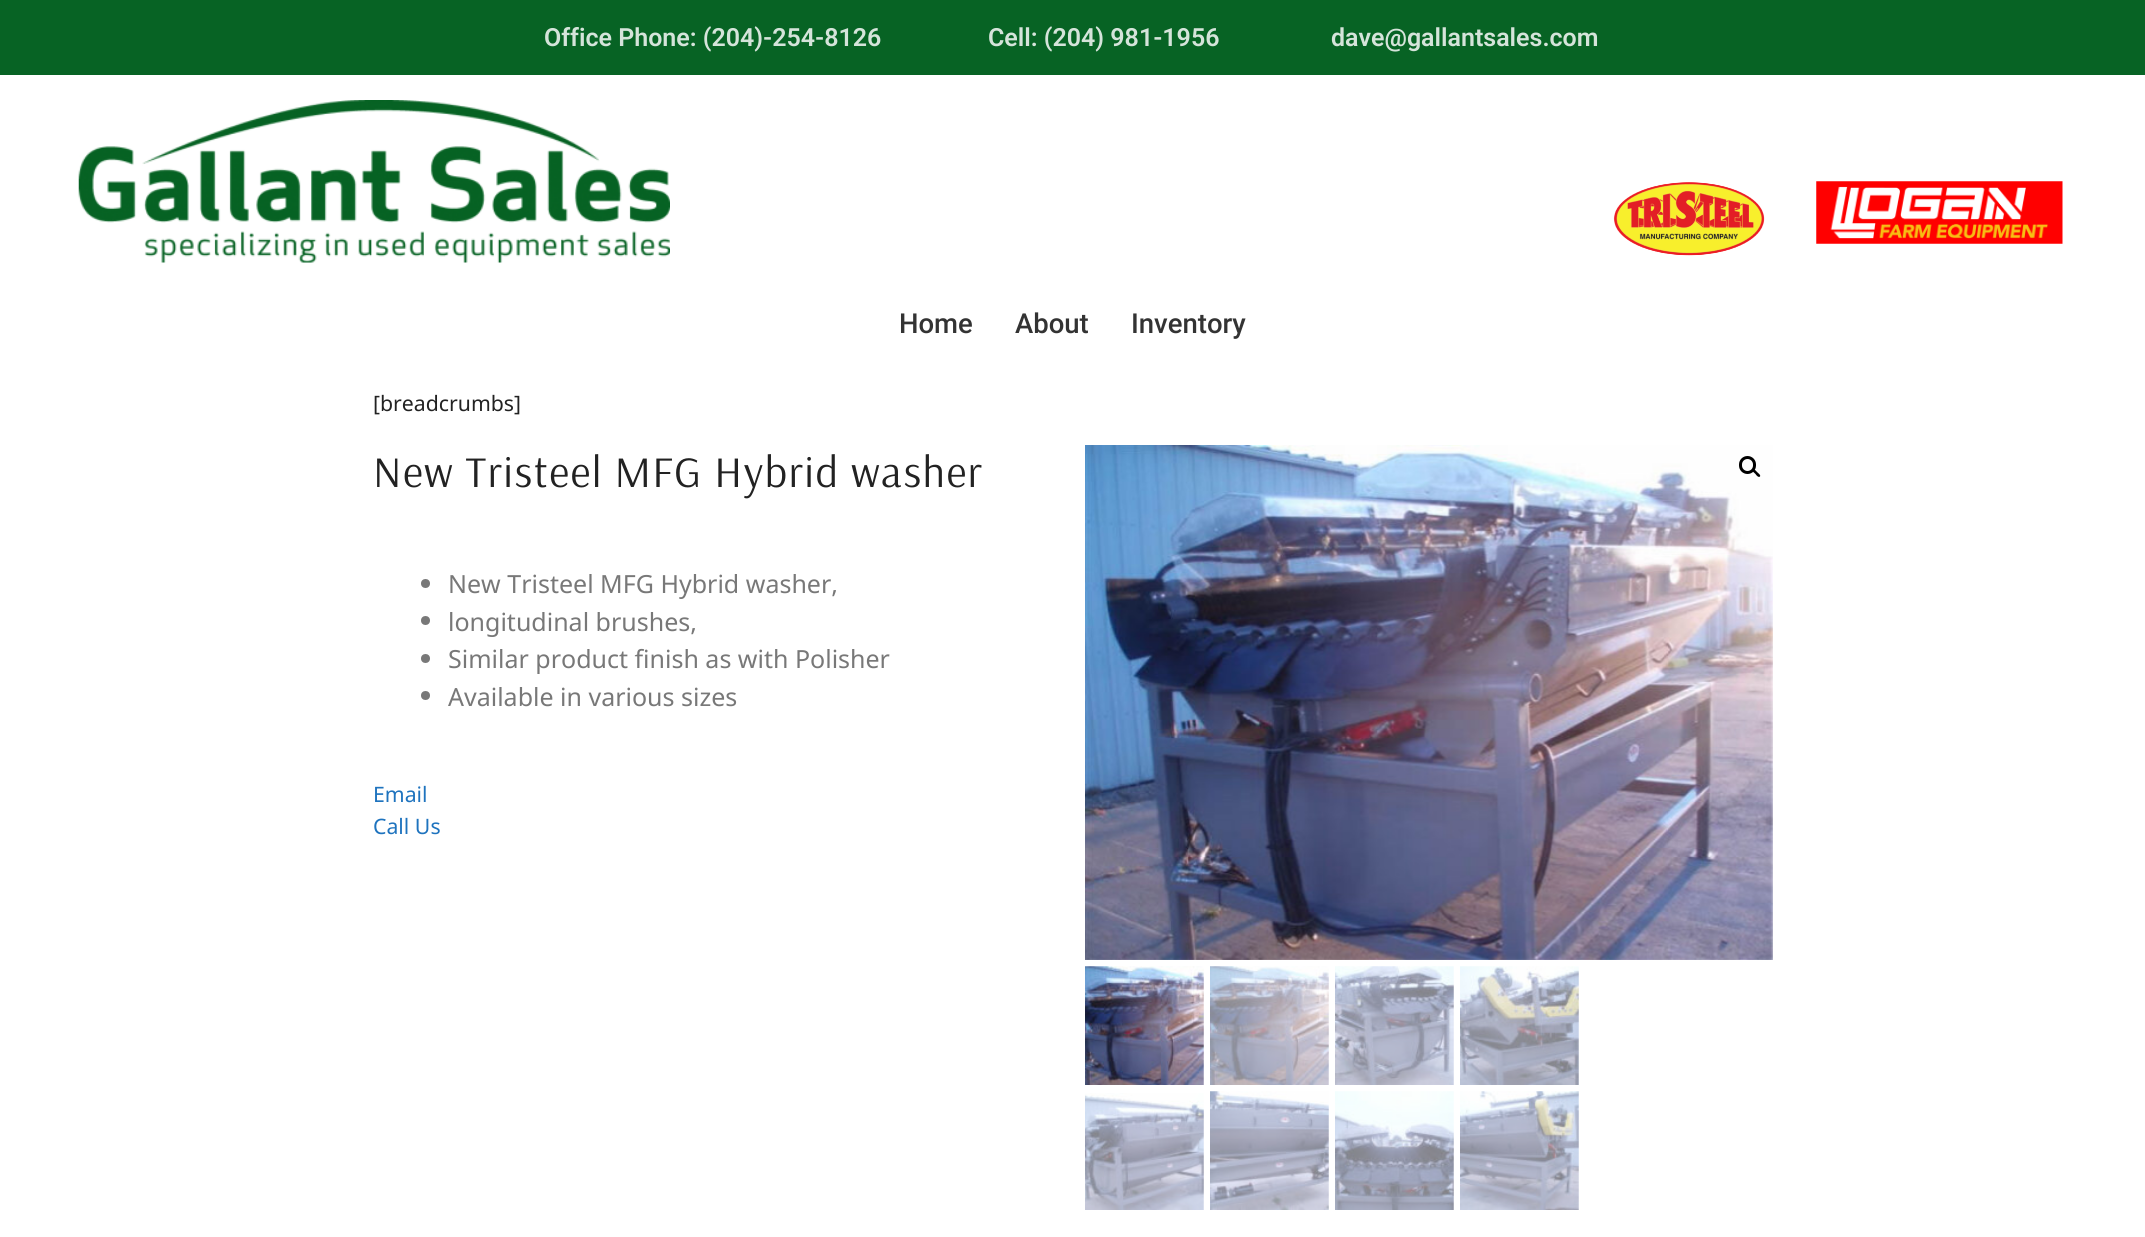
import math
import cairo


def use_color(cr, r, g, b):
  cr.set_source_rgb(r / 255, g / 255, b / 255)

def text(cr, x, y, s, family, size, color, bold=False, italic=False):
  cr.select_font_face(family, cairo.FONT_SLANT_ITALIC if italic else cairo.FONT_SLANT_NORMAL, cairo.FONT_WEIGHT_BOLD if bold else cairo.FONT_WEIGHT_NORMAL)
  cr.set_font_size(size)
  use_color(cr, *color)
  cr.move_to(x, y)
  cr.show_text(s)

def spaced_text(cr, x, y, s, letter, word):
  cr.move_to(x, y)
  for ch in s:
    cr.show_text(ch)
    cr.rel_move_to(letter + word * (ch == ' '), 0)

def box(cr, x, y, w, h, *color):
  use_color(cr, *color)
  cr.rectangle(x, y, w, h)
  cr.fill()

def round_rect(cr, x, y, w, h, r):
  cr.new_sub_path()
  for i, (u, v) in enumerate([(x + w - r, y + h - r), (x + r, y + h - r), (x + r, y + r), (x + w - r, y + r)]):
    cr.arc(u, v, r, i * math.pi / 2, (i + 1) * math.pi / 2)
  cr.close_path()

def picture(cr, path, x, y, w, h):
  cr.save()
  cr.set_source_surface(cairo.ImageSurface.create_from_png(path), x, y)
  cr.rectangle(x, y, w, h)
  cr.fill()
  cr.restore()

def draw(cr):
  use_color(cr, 255, 255, 255)
  cr.paint()
  box(cr, 0, 0, 2145, 75, 7, 99, 36)
  picture(cr, "img_01.png", 78, 100, 592, 163)
  picture(cr, "img_02.png", 1613, 182, 152, 74)
  picture(cr, "img_03.png", 1816, 181, 247, 63)
  use_color(cr, 120, 120, 120)
  cr.arc(425.5, 583.5, 4.5, 0, 2 * math.pi)
  cr.fill()
  cr.arc(425.5, 620.5, 4.5, 0, 2 * math.pi)
  cr.fill()
  cr.arc(425.5, 658.5, 4.5, 0, 2 * math.pi)
  cr.fill()
  cr.arc(425.5, 695.5, 4.5, 0, 2 * math.pi)
  cr.fill()
  picture(cr, "img_04.png", 1085, 445, 688, 515)
  round_rect(cr, 1740.5, 457.5, 14, 15, 7)
  use_color(cr, 0, 0, 0)
  cr.set_line_width(3)
  cr.stroke()
  cr.new_path()
  cr.move_to(1752.5, 469.5)
  cr.curve_to(1754, 468, 1756.5, 471.5, 1757, 472)
  cr.curve_to(1758, 473, 1761, 475, 1760, 476.5)
  cr.curve_to(1758.5, 478, 1756, 475, 1755.5, 474)
  cr.curve_to(1754.5, 473, 1751.5, 471, 1752.5, 469.5)
  cr.close_path()
  cr.fill()
  picture(cr, "img_05.png", 1085, 966, 119, 119)
  picture(cr, "img_06.png", 1210, 966, 119, 119)
  picture(cr, "img_07.png", 1335, 966, 119, 119)
  picture(cr, "img_08.png", 1460, 966, 119, 119)
  picture(cr, "img_09.png", 1085, 1093, 119, 117)
  picture(cr, "img_10.png", 1210, 1091, 119, 119)
  picture(cr, "img_11.png", 1335, 1091, 119, 119)
  picture(cr, "img_12.png", 1460, 1091, 119, 119)
  text(cr, 544, 46, "Office Phone: (204)-254-8126", "Roboto SemiBold", 25, (213, 228, 218))
  text(cr, 988, 46, "Cell: (204) 981-1956", "Roboto SemiBold", 25, (213, 228, 218))
  text(cr, 1331, 46, "dave@gallantsales.com", "Roboto SemiBold", 25, (213, 228, 218))
  text(cr, 899, 333, "Home", "Roboto Medium", 27.5, (51, 51, 51))
  text(cr, 1015, 333, "About", "Roboto Medium", 27.5, (51, 51, 51))
  text(cr, 1131, 333, "Inventory", "Roboto Medium", 27.5, (51, 51, 51))
  text(cr, 373, 411, "[breadcrumbs]", "Noto Sans", 21.25, (34, 34, 34))
  cr.select_font_face("Arsenal")
  cr.set_font_size(43.75)
  spaced_text(cr, 373, 487, "New Tristeel MFG Hybrid washer", 1.4, 0)
  text(cr, 448, 593, "New Tristeel MFG Hybrid washer,", "Noto Sans", 25, (120, 120, 120))
  text(cr, 448, 631, "longitudinal brushes,", "Noto Sans", 25, (120, 120, 120))
  text(cr, 448, 668, "Similar product finish as with Polisher", "Noto Sans", 25, (120, 120, 120))
  text(cr, 448, 706, "Available in various sizes", "Noto Sans", 25, (120, 120, 120))
  text(cr, 373, 802, "Email", "Noto Sans", 21.25, (30, 115, 190))
  text(cr, 373, 834, "Call Us", "Noto Sans", 21.25, (30, 115, 190))


surface = cairo.ImageSurface(cairo.FORMAT_RGB24, 2145, 1237)
cr = cairo.Context(surface)
options = cairo.FontOptions()
options.set_hint_metrics(cairo.HINT_METRICS_OFF)
options.set_hint_style(cairo.HINT_STYLE_NONE)
cr.set_font_options(options)
cr.set_miter_limit(4)
draw(cr)
surface.write_to_png("out.png")
